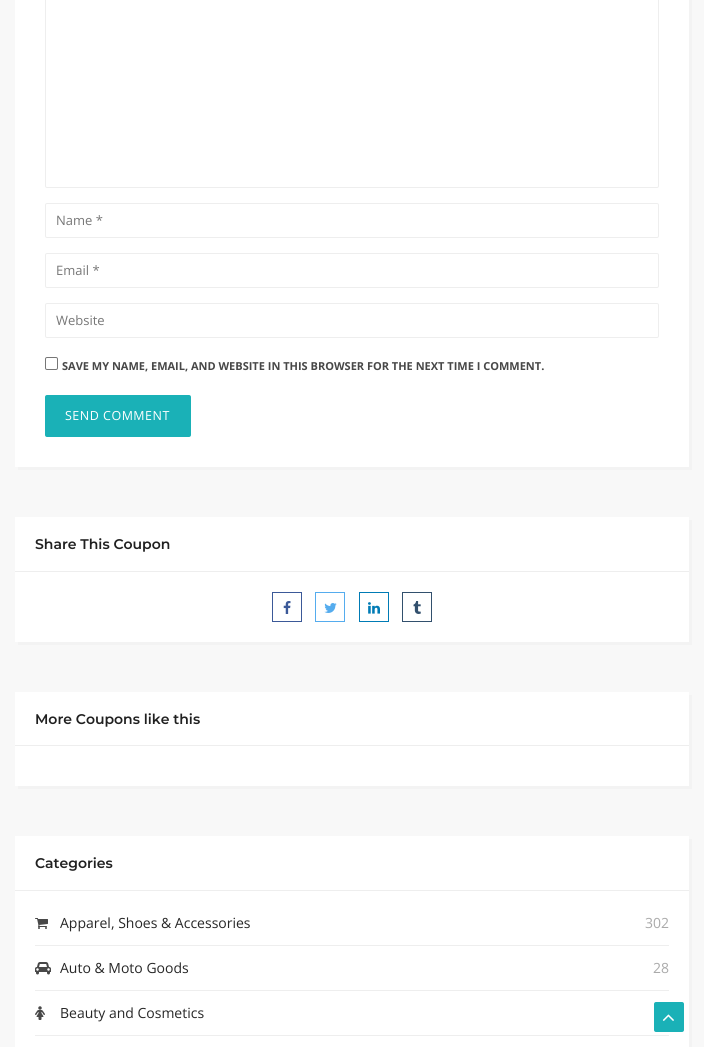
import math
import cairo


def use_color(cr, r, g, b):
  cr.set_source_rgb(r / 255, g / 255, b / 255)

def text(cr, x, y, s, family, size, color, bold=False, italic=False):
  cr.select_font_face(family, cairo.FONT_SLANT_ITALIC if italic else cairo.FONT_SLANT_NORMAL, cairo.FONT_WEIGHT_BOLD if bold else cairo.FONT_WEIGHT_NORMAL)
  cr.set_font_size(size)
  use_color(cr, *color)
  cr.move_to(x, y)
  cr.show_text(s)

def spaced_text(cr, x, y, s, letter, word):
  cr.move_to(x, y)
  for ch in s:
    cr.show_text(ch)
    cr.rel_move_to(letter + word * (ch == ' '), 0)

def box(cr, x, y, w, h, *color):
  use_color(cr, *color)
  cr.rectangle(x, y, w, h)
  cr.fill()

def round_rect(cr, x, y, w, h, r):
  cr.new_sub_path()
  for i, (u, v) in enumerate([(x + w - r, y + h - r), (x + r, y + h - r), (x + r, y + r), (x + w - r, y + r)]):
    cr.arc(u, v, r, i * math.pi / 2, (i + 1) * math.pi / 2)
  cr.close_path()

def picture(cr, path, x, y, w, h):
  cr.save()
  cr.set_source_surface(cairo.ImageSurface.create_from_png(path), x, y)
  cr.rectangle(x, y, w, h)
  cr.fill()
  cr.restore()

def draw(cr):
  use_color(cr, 248, 248, 248)
  cr.paint()
  use_color(cr, 243, 243, 243)
  cr.new_path()
  cr.move_to(18, 467)
  cr.line_to(18, 470)
  cr.line_to(692, 470)
  cr.line_to(692, -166)
  cr.line_to(689, -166)
  cr.line_to(689, 467)
  cr.close_path()
  cr.fill()
  box(cr, 15, 0, 674, 467, 255, 255, 255)
  round_rect(cr, 45.5, -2.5, 613, 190, 1.5)
  use_color(cr, 238, 238, 238)
  cr.set_line_width(1)
  cr.stroke()
  round_rect(cr, 45.5, 203.5, 613, 34, 1.5)
  cr.stroke()
  round_rect(cr, 45.5, 253.5, 613, 34, 1.5)
  cr.stroke()
  round_rect(cr, 45.5, 303.5, 613, 34, 1.5)
  cr.stroke()
  round_rect(cr, 45.5, 357.5, 12, 12, 1.5)
  use_color(cr, 118, 118, 118)
  cr.stroke()
  use_color(cr, 26, 177, 183)
  round_rect(cr, 45, 395, 146, 42, 2)
  cr.fill()
  use_color(cr, 243, 243, 243)
  cr.new_path()
  cr.move_to(18, 642)
  cr.line_to(18, 645)
  cr.line_to(692, 645)
  cr.line_to(692, 520)
  cr.line_to(689, 520)
  cr.line_to(689, 642)
  cr.close_path()
  cr.fill()
  box(cr, 15, 517, 674, 125, 255, 255, 255)
  box(cr, 15, 571, 674, 1, 238, 238, 238)
  cr.rectangle(272.5, 592.5, 29, 29)
  use_color(cr, 59, 89, 152)
  cr.stroke()
  picture(cr, "img_01.png", 283, 601, 8, 13)
  cr.rectangle(315.5, 592.5, 29, 29)
  use_color(cr, 85, 172, 238)
  cr.stroke()
  picture(cr, "img_02.png", 324, 603, 13, 10)
  cr.rectangle(359.5, 592.5, 29, 29)
  use_color(cr, 0, 123, 181)
  cr.stroke()
  picture(cr, "img_03.png", 368, 602, 12, 12)
  cr.rectangle(402.5, 592.5, 29, 29)
  use_color(cr, 50, 80, 109)
  cr.stroke()
  picture(cr, "img_04.png", 413, 601, 8, 13)
  use_color(cr, 243, 243, 243)
  cr.new_path()
  cr.move_to(18, 786)
  cr.line_to(18, 789)
  cr.line_to(692, 789)
  cr.line_to(692, 695)
  cr.line_to(689, 695)
  cr.line_to(689, 786)
  cr.close_path()
  cr.fill()
  box(cr, 15, 692, 674, 94, 255, 255, 255)
  box(cr, 15, 745, 674, 1, 238, 238, 238)
  use_color(cr, 243, 243, 243)
  cr.new_path()
  cr.move_to(18, 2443)
  cr.line_to(18, 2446)
  cr.line_to(692, 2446)
  cr.line_to(692, 839)
  cr.line_to(689, 839)
  cr.line_to(689, 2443)
  cr.close_path()
  cr.fill()
  box(cr, 15, 836, 674, 211, 255, 255, 255)
  box(cr, 15, 890, 674, 1, 238, 238, 238)
  box(cr, 35, 945, 634, 1, 238, 238, 238)
  picture(cr, "img_05.png", 35, 918, 13, 11)
  box(cr, 35, 990, 634, 1, 238, 238, 238)
  picture(cr, "img_06.png", 35, 962, 16, 13)
  box(cr, 35, 1035, 634, 1, 238, 238, 238)
  picture(cr, "img_07.png", 35, 1006, 10, 14)
  use_color(cr, 26, 177, 183)
  round_rect(cr, 654, 1002, 30, 30, 2)
  cr.fill()
  picture(cr, "img_08.png", 662, 1014, 12, 7)
  text(cr, 56, 225, "Name *", "Open Sans", 13, (119, 119, 119))
  text(cr, 56, 275, "Email *", "Open Sans", 13, (119, 119, 119))
  text(cr, 56, 325, "Website", "Open Sans", 13, (119, 119, 119))
  text(cr, 62, 370, "SAVE MY NAME, EMAIL, AND WEBSITE IN THIS BROWSER FOR THE NEXT TIME I COMMENT.", "Open Sans", 11, (72, 72, 72), bold=True)
  cr.select_font_face("Open Sans")
  cr.set_font_size(12.5)
  use_color(cr, 255, 255, 255)
  spaced_text(cr, 65, 420, "SEND COMMENT", 0.5, 0)
  text(cr, 35, 549, "Share This Coupon", "Montserrat Thin", 14, (32, 32, 32))
  text(cr, 35, 724, "More Coupons like this", "Montserrat Thin", 14, (32, 32, 32))
  text(cr, 35, 868, "Categories", "Montserrat Thin", 14, (32, 32, 32))
  text(cr, 60, 928, "Apparel, Shoes & Accessories", "Open Sans", 14, (39, 39, 39))
  text(cr, 645, 928, "302", "Open Sans", 14, (170, 170, 170))
  text(cr, 60, 973, "Auto & Moto Goods", "Open Sans", 14, (39, 39, 39))
  text(cr, 653, 973, "28", "Open Sans", 14, (170, 170, 170))
  text(cr, 60, 1018, "Beauty and Cosmetics", "Open Sans", 14, (39, 39, 39))


surface = cairo.ImageSurface(cairo.FORMAT_RGB24, 704, 1047)
cr = cairo.Context(surface)
options = cairo.FontOptions()
options.set_hint_metrics(cairo.HINT_METRICS_OFF)
options.set_hint_style(cairo.HINT_STYLE_NONE)
cr.set_font_options(options)
cr.set_miter_limit(4)
draw(cr)
surface.write_to_png("out.png")
